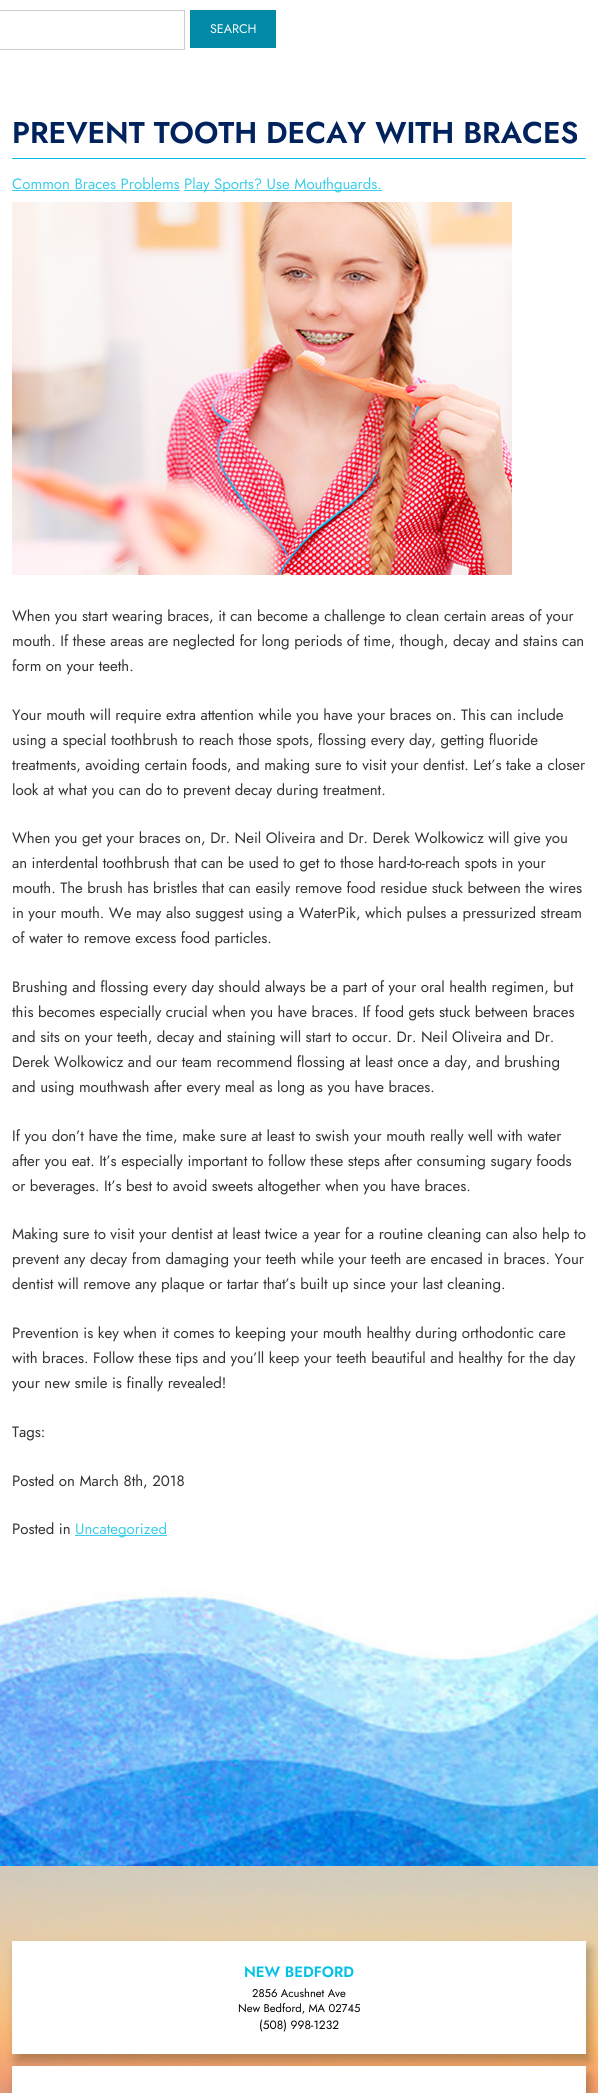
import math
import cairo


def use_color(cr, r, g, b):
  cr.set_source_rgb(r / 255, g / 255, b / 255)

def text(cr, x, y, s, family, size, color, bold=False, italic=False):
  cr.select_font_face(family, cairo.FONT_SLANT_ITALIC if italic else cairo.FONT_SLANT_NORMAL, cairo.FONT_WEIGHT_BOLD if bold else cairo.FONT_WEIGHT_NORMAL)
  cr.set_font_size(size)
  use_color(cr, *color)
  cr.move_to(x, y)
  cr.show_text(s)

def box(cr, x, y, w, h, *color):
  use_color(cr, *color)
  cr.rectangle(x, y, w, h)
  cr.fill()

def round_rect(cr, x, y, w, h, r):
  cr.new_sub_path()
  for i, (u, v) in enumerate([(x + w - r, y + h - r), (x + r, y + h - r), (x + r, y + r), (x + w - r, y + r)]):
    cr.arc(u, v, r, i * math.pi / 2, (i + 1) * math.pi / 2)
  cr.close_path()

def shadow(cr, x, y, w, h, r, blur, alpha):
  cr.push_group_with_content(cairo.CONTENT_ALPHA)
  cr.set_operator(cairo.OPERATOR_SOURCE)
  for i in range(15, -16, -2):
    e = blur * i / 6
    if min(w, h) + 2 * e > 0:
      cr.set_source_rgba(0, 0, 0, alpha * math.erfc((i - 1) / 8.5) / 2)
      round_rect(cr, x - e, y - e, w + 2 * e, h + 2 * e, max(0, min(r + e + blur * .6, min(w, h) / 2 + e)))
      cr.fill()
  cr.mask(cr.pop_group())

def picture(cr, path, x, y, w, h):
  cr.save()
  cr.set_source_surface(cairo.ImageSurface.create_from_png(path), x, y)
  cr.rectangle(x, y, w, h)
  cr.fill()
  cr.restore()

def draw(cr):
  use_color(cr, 255, 255, 255)
  cr.paint()
  picture(cr, "img_01.png", 0, 1587, 598, 279)
  cr.rectangle(-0.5, 10.5, 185, 39)
  use_color(cr, 204, 204, 204)
  cr.set_line_width(1)
  cr.stroke()
  box(cr, 190, 10, 86, 38, 0, 138, 167)
  box(cr, 12, 158, 574, 1, 3, 193, 228)
  box(cr, 12, 190, 168, 1, 60, 206, 232)
  box(cr, 184, 190, 198, 1, 60, 206, 232)
  picture(cr, "img_02.png", 12, 202, 500, 373)
  box(cr, 75, 1535, 92, 1, 60, 206, 232)
  picture(cr, "img_03.png", 0, 1866, 598, 227)
  use_color(cr, 0, 0, 0)
  shadow(cr, 16, 1949, 574, 113, 0, 5.5, 0.29)
  box(cr, 12, 1941, 574, 113, 255, 255, 255)
  use_color(cr, 0, 0, 0)
  shadow(cr, 16, 2074, 574, 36, 0, 5.5, 0.29)
  box(cr, 12, 2066, 574, 27, 255, 255, 255)
  text(cr, 210, 33, "SEARCH", "Jost", 12.5, (255, 255, 255))
  text(cr, 12, 143, "PREVENT TOOTH DECAY WITH BRACES", "Jost SemiBold", 30, (0, 35, 94))
  text(cr, 12, 189, "Common Braces Problems", "Jost", 15, (60, 206, 232))
  text(cr, 184, 189, "Play Sports? Use Mouthguards.", "Jost", 15, (60, 206, 232))
  text(cr, 12, 621, "When you start wearing braces, it can become a challenge to clean certain areas of your", "Jost", 15, (51, 51, 51))
  text(cr, 12, 646, "mouth. If these areas are neglected for long periods of time, though, decay and stains can", "Jost", 15, (51, 51, 51))
  text(cr, 12, 671, "form on your teeth.", "Jost", 15, (51, 51, 51))
  text(cr, 12, 720, "Your mouth will require extra attention while you have your braces on. This can include", "Jost", 15, (51, 51, 51))
  text(cr, 12, 745, "using a special toothbrush to reach those spots, flossing every day, getting fluoride", "Jost", 15, (51, 51, 51))
  text(cr, 12, 770, "treatments, avoiding certain foods, and making sure to visit your dentist. Let’s take a closer", "Jost", 15, (51, 51, 51))
  text(cr, 12, 795, "look at what you can do to prevent decay during treatment.", "Jost", 15, (51, 51, 51))
  text(cr, 12, 843, "When you get your braces on, Dr. Neil Oliveira and Dr. Derek Wolkowicz will give you", "Jost", 15, (51, 51, 51))
  text(cr, 12, 868, "an interdental toothbrush that can be used to get to those hard-to-reach spots in your", "Jost", 15, (51, 51, 51))
  text(cr, 12, 893, "mouth. The brush has bristles that can easily remove food residue stuck between the wires", "Jost", 15, (51, 51, 51))
  text(cr, 12, 918, "in your mouth. We may also suggest using a WaterPik, which pulses a pressurized stream", "Jost", 15, (51, 51, 51))
  text(cr, 12, 943, "of water to remove excess food particles.", "Jost", 15, (51, 51, 51))
  text(cr, 12, 992, "Brushing and flossing every day should always be a part of your oral health regimen, but", "Jost", 15, (51, 51, 51))
  text(cr, 12, 1017, "this becomes especially crucial when you have braces. If food gets stuck between braces", "Jost", 15, (51, 51, 51))
  text(cr, 12, 1042, "and sits on your teeth, decay and staining will start to occur. Dr. Neil Oliveira and Dr.", "Jost", 15, (51, 51, 51))
  text(cr, 12, 1067, "Derek Wolkowicz and our team recommend flossing at least once a day, and brushing", "Jost", 15, (51, 51, 51))
  text(cr, 12, 1092, "and using mouthwash after every meal as long as you have braces.", "Jost", 15, (51, 51, 51))
  text(cr, 12, 1141, "If you don’t have the time, make sure at least to swish your mouth really well with water", "Jost", 15, (51, 51, 51))
  text(cr, 12, 1166, "after you eat. It’s especially important to follow these steps after consuming sugary foods", "Jost", 15, (51, 51, 51))
  text(cr, 12, 1191, "or beverages. It’s best to avoid sweets altogether when you have braces.", "Jost", 15, (51, 51, 51))
  text(cr, 12, 1239, "Making sure to visit your dentist at least twice a year for a routine cleaning can also help to", "Jost", 15, (51, 51, 51))
  text(cr, 12, 1264, "prevent any decay from damaging your teeth while your teeth are encased in braces. Your", "Jost", 15, (51, 51, 51))
  text(cr, 12, 1289, "dentist will remove any plaque or tartar that’s built up since your last cleaning.", "Jost", 15, (51, 51, 51))
  text(cr, 12, 1338, "Prevention is key when it comes to keeping your mouth healthy during orthodontic care", "Jost", 15, (51, 51, 51))
  text(cr, 12, 1363, "with braces. Follow these tips and you’ll keep your teeth beautiful and healthy for the day", "Jost", 15, (51, 51, 51))
  text(cr, 12, 1388, "your new smile is finally revealed!", "Jost", 15, (51, 51, 51))
  text(cr, 12, 1437, "Tags:", "Jost", 15, (51, 51, 51))
  text(cr, 12, 1486, "Posted on March 8th, 2018", "Jost", 15, (51, 51, 51))
  text(cr, 12, 1534, "Posted in", "Jost", 15, (51, 51, 51))
  text(cr, 75, 1534, "Uncategorized", "Jost", 15, (60, 206, 232))
  text(cr, 244, 1977, "NEW BEDFORD", "Jost SemiBold", 15, (3, 193, 228))
  text(cr, 252, 1997, "2856 Acushnet Ave", "Jost", 11.25, (0, 0, 0))
  text(cr, 238, 2012, "New Bedford, MA 02745", "Jost", 11.25, (0, 0, 0))
  text(cr, 259, 2029, "(508) 998-1232", "Jost", 12, (0, 0, 0))


surface = cairo.ImageSurface(cairo.FORMAT_RGB24, 598, 2093)
cr = cairo.Context(surface)
options = cairo.FontOptions()
options.set_hint_metrics(cairo.HINT_METRICS_OFF)
options.set_hint_style(cairo.HINT_STYLE_NONE)
cr.set_font_options(options)
cr.set_miter_limit(4)
draw(cr)
surface.write_to_png("out.png")
